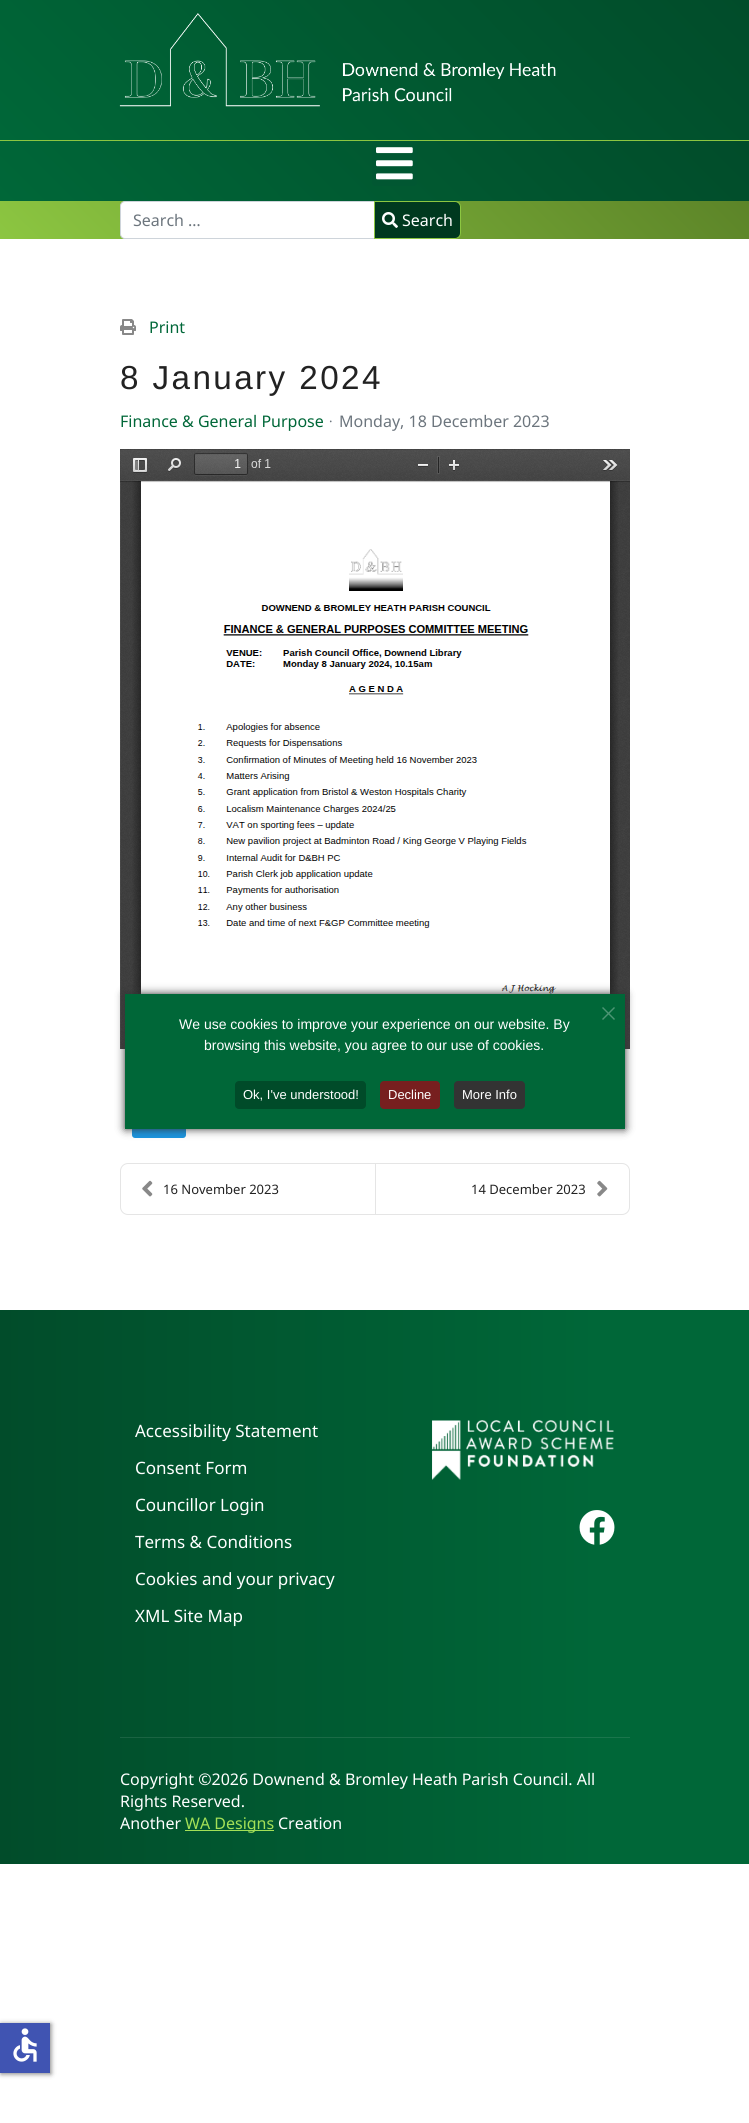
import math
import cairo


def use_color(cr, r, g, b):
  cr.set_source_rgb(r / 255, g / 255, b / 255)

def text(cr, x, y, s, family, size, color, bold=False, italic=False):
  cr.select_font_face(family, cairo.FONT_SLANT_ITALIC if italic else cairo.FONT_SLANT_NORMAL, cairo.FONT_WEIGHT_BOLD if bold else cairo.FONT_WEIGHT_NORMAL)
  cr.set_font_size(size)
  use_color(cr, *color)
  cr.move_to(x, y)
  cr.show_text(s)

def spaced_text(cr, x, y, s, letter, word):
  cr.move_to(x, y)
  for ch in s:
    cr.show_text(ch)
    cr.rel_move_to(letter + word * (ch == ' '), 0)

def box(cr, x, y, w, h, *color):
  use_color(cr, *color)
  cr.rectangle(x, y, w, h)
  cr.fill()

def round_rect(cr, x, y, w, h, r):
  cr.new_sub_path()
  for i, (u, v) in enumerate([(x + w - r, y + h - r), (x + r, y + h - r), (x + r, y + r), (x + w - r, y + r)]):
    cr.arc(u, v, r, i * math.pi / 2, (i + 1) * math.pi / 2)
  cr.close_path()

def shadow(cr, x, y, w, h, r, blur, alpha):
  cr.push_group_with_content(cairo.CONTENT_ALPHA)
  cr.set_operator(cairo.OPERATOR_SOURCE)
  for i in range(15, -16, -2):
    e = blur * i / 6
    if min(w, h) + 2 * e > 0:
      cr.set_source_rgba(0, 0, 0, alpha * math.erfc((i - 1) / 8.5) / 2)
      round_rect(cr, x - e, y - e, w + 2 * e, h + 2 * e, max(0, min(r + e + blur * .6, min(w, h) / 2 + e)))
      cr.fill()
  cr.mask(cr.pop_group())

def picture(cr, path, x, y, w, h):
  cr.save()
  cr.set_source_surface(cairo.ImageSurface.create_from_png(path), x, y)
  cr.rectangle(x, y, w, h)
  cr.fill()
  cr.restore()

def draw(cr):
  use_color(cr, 255, 255, 255)
  cr.paint()
  gradient = cairo.LinearGradient(152, 292, 597, -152)
  gradient.add_color_stop_rgba(0, 0, 0.404, 0.22, 1)
  gradient.add_color_stop_rgba(1, 0.004, 0.298, 0.165, 1)
  cr.set_source(gradient)
  cr.rectangle(0, 0, 749, 140)
  cr.fill()
  box(cr, 0, 140, 749, 1, 140, 198, 65)
  picture(cr, "img_01.png", 119, 13, 437, 94)
  gradient = cairo.LinearGradient(172, 373, 577, -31)
  gradient.add_color_stop_rgba(0, 0, 0.404, 0.22, 1)
  gradient.add_color_stop_rgba(1, 0.004, 0.298, 0.165, 1)
  cr.set_source(gradient)
  cr.rectangle(0, 141, 749, 60)
  cr.fill()
  use_color(cr, 1, 87, 50)
  round_rect(cr, 372, 141, 45, 45, 3)
  cr.fill()
  picture(cr, "img_02.png", 376, 147, 37, 33)
  gradient = cairo.LinearGradient(178, 417, 571, 23)
  gradient.add_color_stop_rgba(0, 0.549, 0.776, 0.255, 1)
  gradient.add_color_stop_rgba(1, 0.361, 0.518, 0.157, 1)
  cr.set_source(gradient)
  cr.rectangle(0, 201, 749, 38)
  cr.fill()
  use_color(cr, 255, 255, 255)
  cr.new_path()
  cr.move_to(125, 201.5)
  cr.line_to(374.5, 201.5)
  cr.line_to(374.5, 238.5)
  cr.line_to(125, 238.5)
  cr.curve_to(122.5, 238.5, 120.5, 236.5, 120.5, 234)
  cr.line_to(120.5, 206)
  cr.curve_to(120.5, 203.5, 122.5, 201.5, 125, 201.5)
  cr.close_path()
  cr.fill_preserve()
  use_color(cr, 206, 212, 218)
  cr.set_line_width(1)
  cr.stroke()
  use_color(cr, 0, 57, 31)
  cr.new_path()
  cr.move_to(374.5, 201.5)
  cr.line_to(455, 201.5)
  cr.curve_to(458, 201.5, 460.5, 204, 460.5, 207)
  cr.line_to(460.5, 233)
  cr.curve_to(460.5, 236, 458, 238.5, 455, 238.5)
  cr.line_to(374.5, 238.5)
  cr.close_path()
  cr.fill_preserve()
  use_color(cr, 140, 198, 65)
  cr.stroke()
  picture(cr, "img_03.png", 382, 212, 16, 16)
  picture(cr, "img_04.png", 120, 319, 16, 16)
  picture(cr, "img_05.png", 120, 449, 510, 600)
  use_color(cr, 27, 149, 224)
  round_rect(cr, 132, 1078, 54, 60, 3)
  cr.fill()
  round_rect(cr, 120.5, 1163.5, 509, 51, 7.5)
  use_color(cr, 229, 229, 229)
  cr.stroke()
  picture(cr, "img_06.png", 142, 1180, 11, 17)
  box(cr, 375, 1164, 1, 50, 229, 229, 229)
  picture(cr, "img_07.png", 597, 1180, 11, 17)
  gradient = cairo.LinearGradient(749, 1524, 0, 1524)
  gradient.add_color_stop_rgba(0.2, 0, 0.404, 0.22, 1)
  gradient.add_color_stop_rgba(1, 0.004, 0.298, 0.165, 1)
  cr.set_source(gradient)
  cr.rectangle(0, 1310, 749, 427)
  cr.fill()
  picture(cr, "img_08.png", 432, 1420, 182, 60)
  picture(cr, "img_09.png", 579, 1510, 36, 35)
  gradient = cairo.LinearGradient(749, 1801, 0, 1801)
  gradient.add_color_stop_rgba(0.2, 0, 0.404, 0.22, 1)
  gradient.add_color_stop_rgba(1, 0.004, 0.298, 0.165, 1)
  cr.set_source(gradient)
  cr.rectangle(0, 1737, 749, 127)
  cr.fill()
  gradient = cairo.LinearGradient(749, 1801, 0, 1801)
  gradient.add_color_stop_rgba(0.2, 0.102, 0.463, 0.298, 1)
  gradient.add_color_stop_rgba(1, 0.102, 0.369, 0.247, 1)
  cr.set_source(gradient)
  cr.rectangle(120, 1737, 510, 1)
  cr.fill()
  box(cr, 185, 1830, 89, 1, 164, 224, 87)
  use_color(cr, 51, 51, 51)
  shadow(cr, 125, 994, 500, 135, 0, 4.5, 1)
  box(cr, 125, 994, 500, 135, 0, 103, 56)
  use_color(cr, 77, 149, 116)
  cr.new_path()
  cr.move_to(614, 1007)
  cr.line_to(615, 1008)
  cr.line_to(603, 1020)
  cr.line_to(602, 1019)
  cr.close_path()
  cr.fill()
  cr.new_path()
  cr.move_to(602, 1008)
  cr.line_to(603, 1007)
  cr.line_to(615, 1019)
  cr.line_to(614, 1020)
  cr.close_path()
  cr.fill()
  use_color(cr, 0, 75, 41)
  round_rect(cr, 235, 1081, 131, 28, 4)
  cr.fill()
  use_color(cr, 119, 31, 31)
  round_rect(cr, 380, 1081, 60, 28, 4)
  cr.fill()
  use_color(cr, 51, 51, 51)
  round_rect(cr, 454, 1081, 71, 28, 4)
  cr.fill()
  use_color(cr, 0, 0, 0)
  shadow(cr, 1, 2024, 50, 50, 0, 2.5, 0.5)
  box(cr, 0, 2023, 50, 50, 64, 84, 178)
  picture(cr, "img_10.png", 13, 2028, 24, 34)
  text(cr, 133, 226, "Search …", "Noto Sans", 16, (108, 117, 125))
  text(cr, 402, 226, "Search", "Noto Sans", 16, (255, 255, 255))
  text(cr, 149, 333, "Print", "Noto Sans", 16, (0, 103, 56))
  cr.select_font_face("Liberation Sans")
  cr.set_font_size(33.25)
  use_color(cr, 34, 34, 34)
  spaced_text(cr, 120, 389, "8 January 2024", 2.4, 0)
  text(cr, 120, 427, "Finance & General Purpose", "Noto Sans", 16, (0, 103, 56))
  text(cr, 329, 426, "·", "Noto Sans", 13, (108, 117, 125))
  text(cr, 339, 427, "Monday, 18 December 2023", "Noto Sans", 16, (108, 117, 125))
  text(cr, 163, 1194, "16 November 2023", "Noto Sans", 13, (34, 34, 34))
  text(cr, 471, 1194, "14 December 2023", "Noto Sans", 13, (34, 34, 34))
  text(cr, 135, 1437, "Accessibility Statement", "Noto Sans", 17, (255, 255, 255))
  text(cr, 135, 1474, "Consent Form", "Noto Sans", 17, (255, 255, 255))
  text(cr, 135, 1511, "Councillor Login", "Noto Sans", 17, (255, 255, 255))
  text(cr, 135, 1548, "Terms & Conditions", "Noto Sans", 17, (255, 255, 255))
  text(cr, 135, 1585, "Cookies and your privacy", "Noto Sans", 17, (255, 255, 255))
  text(cr, 135, 1622, "XML Site Map", "Noto Sans", 17, (255, 255, 255))
  text(cr, 120, 1785, "Copyright ©2026 Downend & Bromley Heath Parish Council. All", "Noto Sans", 16, (255, 255, 255))
  text(cr, 120, 1807, "Rights Reserved.", "Noto Sans", 16, (255, 255, 255))
  text(cr, 120, 1829, "Another", "Noto Sans", 16, (255, 255, 255))
  text(cr, 185, 1829, "WA Designs", "Noto Sans", 16, (164, 224, 87))
  text(cr, 278, 1829, "Creation", "Noto Sans", 16, (255, 255, 255))
  text(cr, 179, 1029, "We use cookies to improve your experience on our website. By", "Liberation Sans", 14, (255, 255, 255))
  text(cr, 204, 1050, "browsing this website, you agree to our use of cookies.", "Liberation Sans", 14, (255, 255, 255))
  text(cr, 243, 1099, "Ok, I've understood!", "Liberation Sans", 13, (255, 255, 255))
  text(cr, 388, 1099, "Decline", "Liberation Sans", 13, (255, 255, 255))
  text(cr, 462, 1099, "More Info", "Liberation Sans", 13, (255, 255, 255))


surface = cairo.ImageSurface(cairo.FORMAT_RGB24, 749, 2123)
cr = cairo.Context(surface)
options = cairo.FontOptions()
options.set_hint_metrics(cairo.HINT_METRICS_OFF)
options.set_hint_style(cairo.HINT_STYLE_NONE)
cr.set_font_options(options)
cr.set_miter_limit(4)
draw(cr)
surface.write_to_png("out.png")
